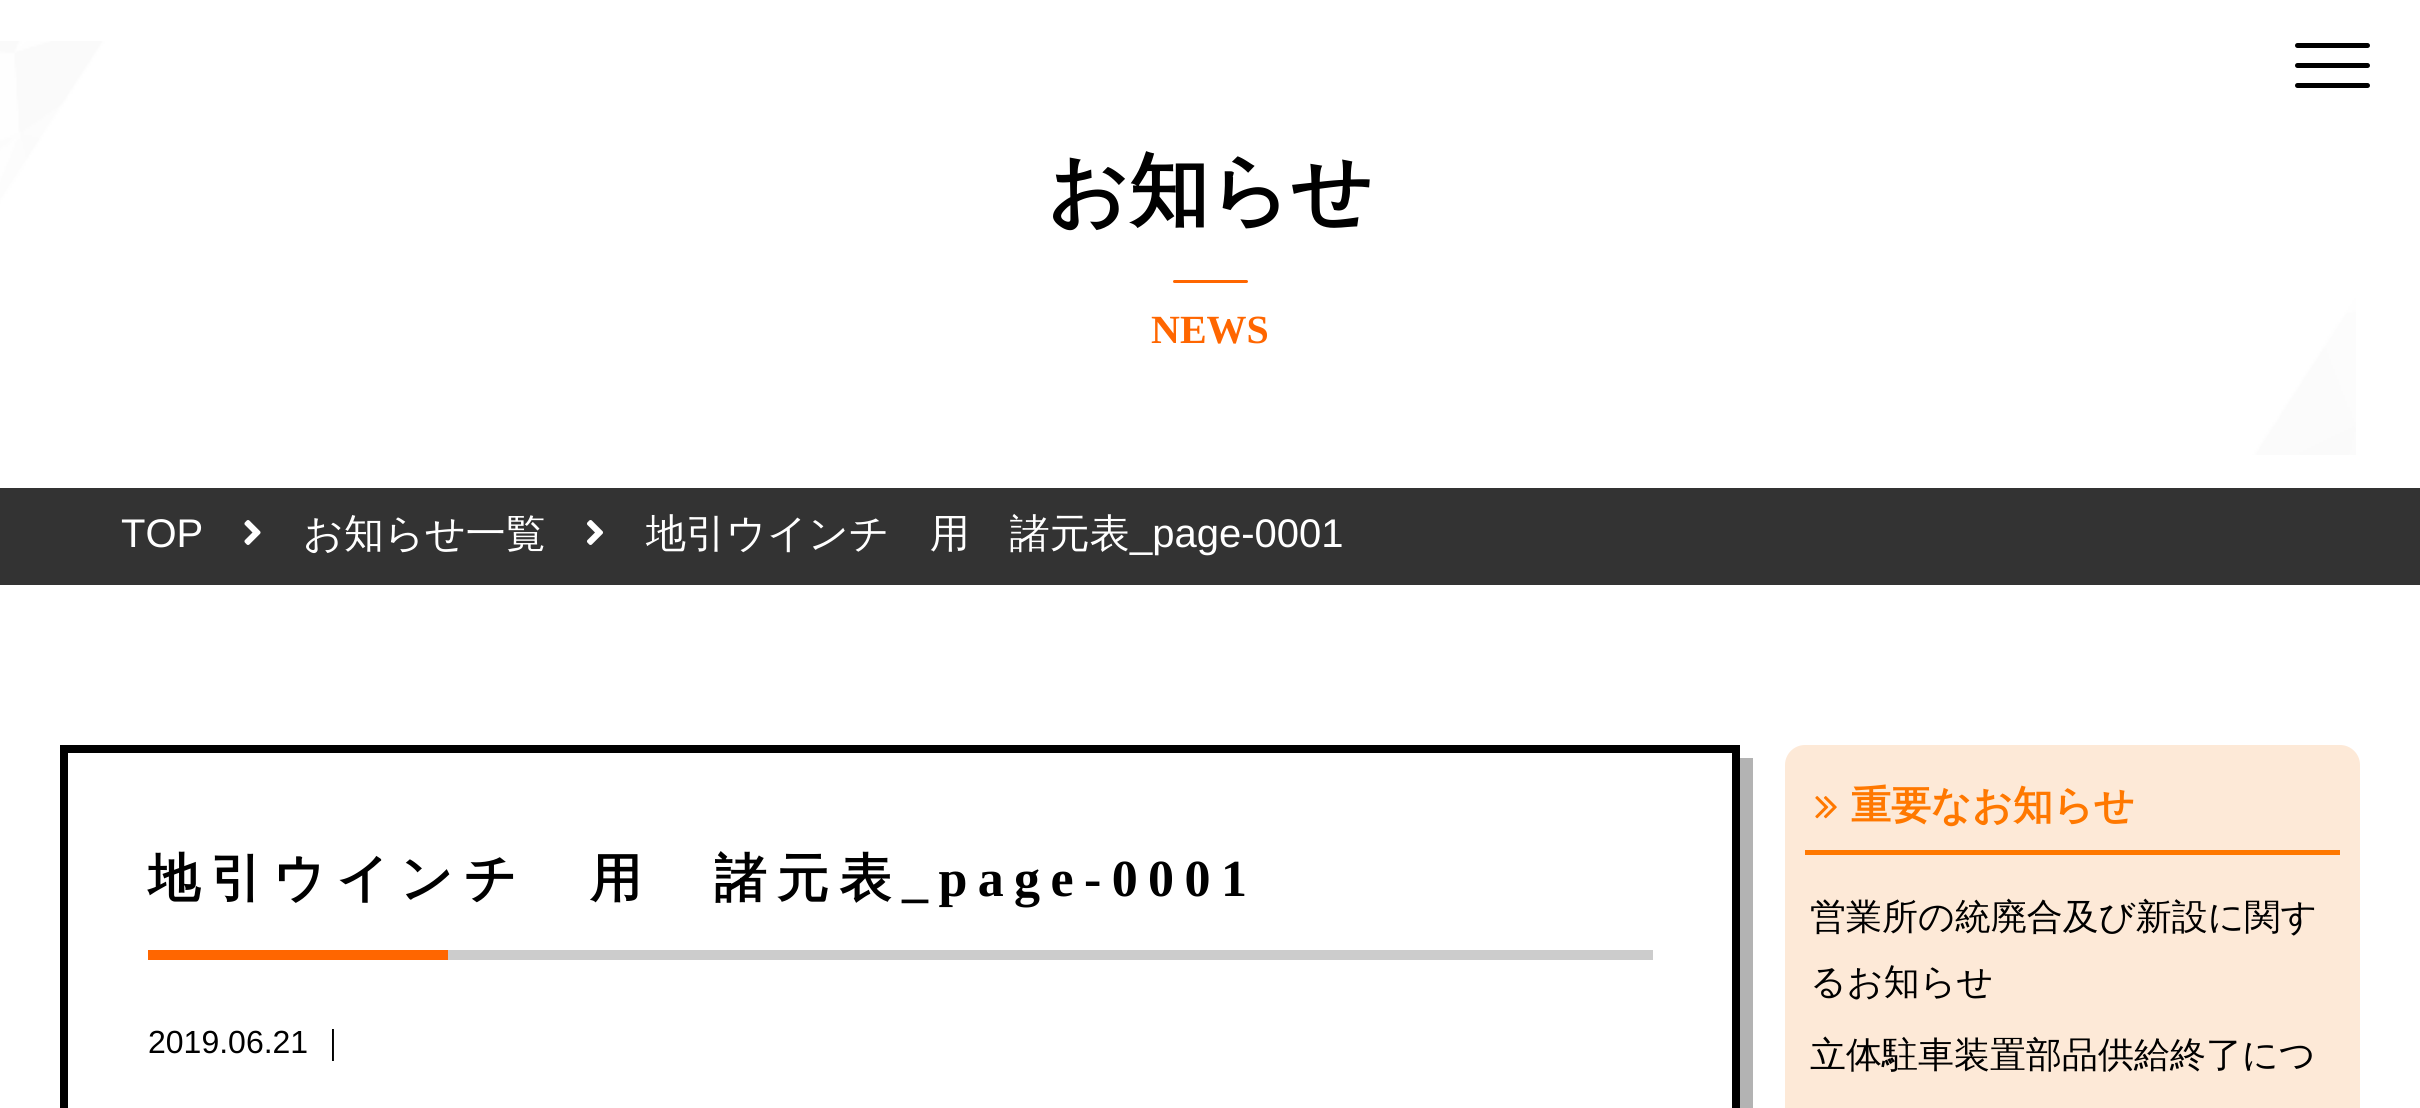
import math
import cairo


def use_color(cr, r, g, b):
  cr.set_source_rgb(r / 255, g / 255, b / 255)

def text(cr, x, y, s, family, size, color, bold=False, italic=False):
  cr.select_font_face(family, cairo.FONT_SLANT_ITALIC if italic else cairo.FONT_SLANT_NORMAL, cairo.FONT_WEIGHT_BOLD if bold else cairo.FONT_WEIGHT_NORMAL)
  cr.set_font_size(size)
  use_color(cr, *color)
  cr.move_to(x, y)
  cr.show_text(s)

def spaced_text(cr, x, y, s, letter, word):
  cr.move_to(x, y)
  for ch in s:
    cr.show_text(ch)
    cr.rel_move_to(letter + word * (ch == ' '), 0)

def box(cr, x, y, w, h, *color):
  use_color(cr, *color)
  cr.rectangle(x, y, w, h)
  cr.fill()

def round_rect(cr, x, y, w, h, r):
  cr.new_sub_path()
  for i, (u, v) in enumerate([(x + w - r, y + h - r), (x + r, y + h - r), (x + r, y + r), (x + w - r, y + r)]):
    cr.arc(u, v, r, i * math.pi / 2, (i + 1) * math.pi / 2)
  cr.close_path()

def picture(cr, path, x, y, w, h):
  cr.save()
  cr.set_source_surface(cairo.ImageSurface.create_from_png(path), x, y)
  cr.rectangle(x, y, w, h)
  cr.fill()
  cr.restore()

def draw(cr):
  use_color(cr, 255, 255, 255)
  cr.paint()
  picture(cr, "img_01.png", 0, 41, 2356, 414)
  use_color(cr, 0, 0, 0)
  round_rect(cr, 2295, 43, 75, 5, 2.5)
  cr.fill()
  round_rect(cr, 2295, 63, 75, 5, 2.5)
  cr.fill()
  round_rect(cr, 2295, 83, 75, 5, 2.5)
  cr.fill()
  use_color(cr, 255, 102, 0)
  round_rect(cr, 1173, 280, 75, 3, 1.5)
  cr.fill()
  box(cr, 0, 488, 2420, 97, 51, 51, 51)
  picture(cr, "img_02.png", 244, 520, 17, 25)
  picture(cr, "img_03.png", 587, 520, 16, 25)
  use_color(cr, 179, 179, 179)
  cr.new_path()
  cr.move_to(73, 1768)
  cr.line_to(73, 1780)
  cr.line_to(1753, 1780)
  cr.line_to(1753, 758)
  cr.line_to(1740, 758)
  cr.line_to(1740, 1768)
  cr.close_path()
  cr.fill()
  cr.rectangle(64, 749, 1672, 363)
  use_color(cr, 0, 0, 0)
  cr.set_line_width(8)
  cr.stroke()
  box(cr, 448, 950, 1205, 10, 204, 204, 204)
  box(cr, 148, 950, 300, 10, 255, 102, 0)
  use_color(cr, 253, 233, 215)
  round_rect(cr, 1785, 745, 575, 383, 20)
  cr.fill()
  box(cr, 1805, 850, 535, 5, 255, 120, 0)
  picture(cr, "img_04.png", 1815, 796, 22, 23)
  text(cr, 1047, 218, "お知らせ", "WenQuanYi Zen Hei", 80, (0, 0, 0), bold=True)
  text(cr, 1151, 343, "NEWS", "Liberation Serif", 40, (255, 102, 0), bold=True)
  text(cr, 121, 547, "TOP", "Liberation Sans", 40, (255, 255, 255))
  text(cr, 303, 547, "お知らせ一覧", "WenQuanYi Zen Hei Medium", 40, (255, 255, 255))
  text(cr, 646, 547, "地引ウインチ　用　諸元表", "WenQuanYi Zen Hei Medium", 40, (255, 255, 255))
  text(cr, 1130, 547, "_page-0001", "Liberation Sans", 40, (255, 255, 255))
  cr.select_font_face("WenQuanYi Zen Hei", cairo.FONT_SLANT_NORMAL, cairo.FONT_WEIGHT_BOLD)
  cr.set_font_size(52)
  use_color(cr, 0, 0, 0)
  spaced_text(cr, 148, 896, "地引ウインチ　用　諸元表", 10.4, 0)
  cr.select_font_face("Liberation Serif", cairo.FONT_SLANT_NORMAL, cairo.FONT_WEIGHT_BOLD)
  spaced_text(cr, 902, 896, "_page-0001", 10.4, 0)
  text(cr, 148, 1053, "2019.06.21", "Liberation Sans", 32, (0, 0, 0))
  text(cr, 317, 1053, "｜", "WenQuanYi Zen Hei Medium", 32, (0, 0, 0))
  text(cr, 1851, 819, "重要なお知らせ", "WenQuanYi Zen Hei", 40, (255, 120, 0), bold=True)
  text(cr, 1810, 929, "営業所の統廃合及び新設に関す", "WenQuanYi Zen Hei Medium", 36, (0, 0, 0))
  text(cr, 1810, 994, "るお知らせ", "WenQuanYi Zen Hei Medium", 36, (0, 0, 0))
  text(cr, 1810, 1067, "立体駐車装置部品供給終了につ", "WenQuanYi Zen Hei Medium", 36, (0, 0, 0))


surface = cairo.ImageSurface(cairo.FORMAT_RGB24, 2420, 1108)
cr = cairo.Context(surface)
options = cairo.FontOptions()
options.set_hint_metrics(cairo.HINT_METRICS_OFF)
options.set_hint_style(cairo.HINT_STYLE_NONE)
cr.set_font_options(options)
cr.set_miter_limit(4)
draw(cr)
surface.write_to_png("out.png")
